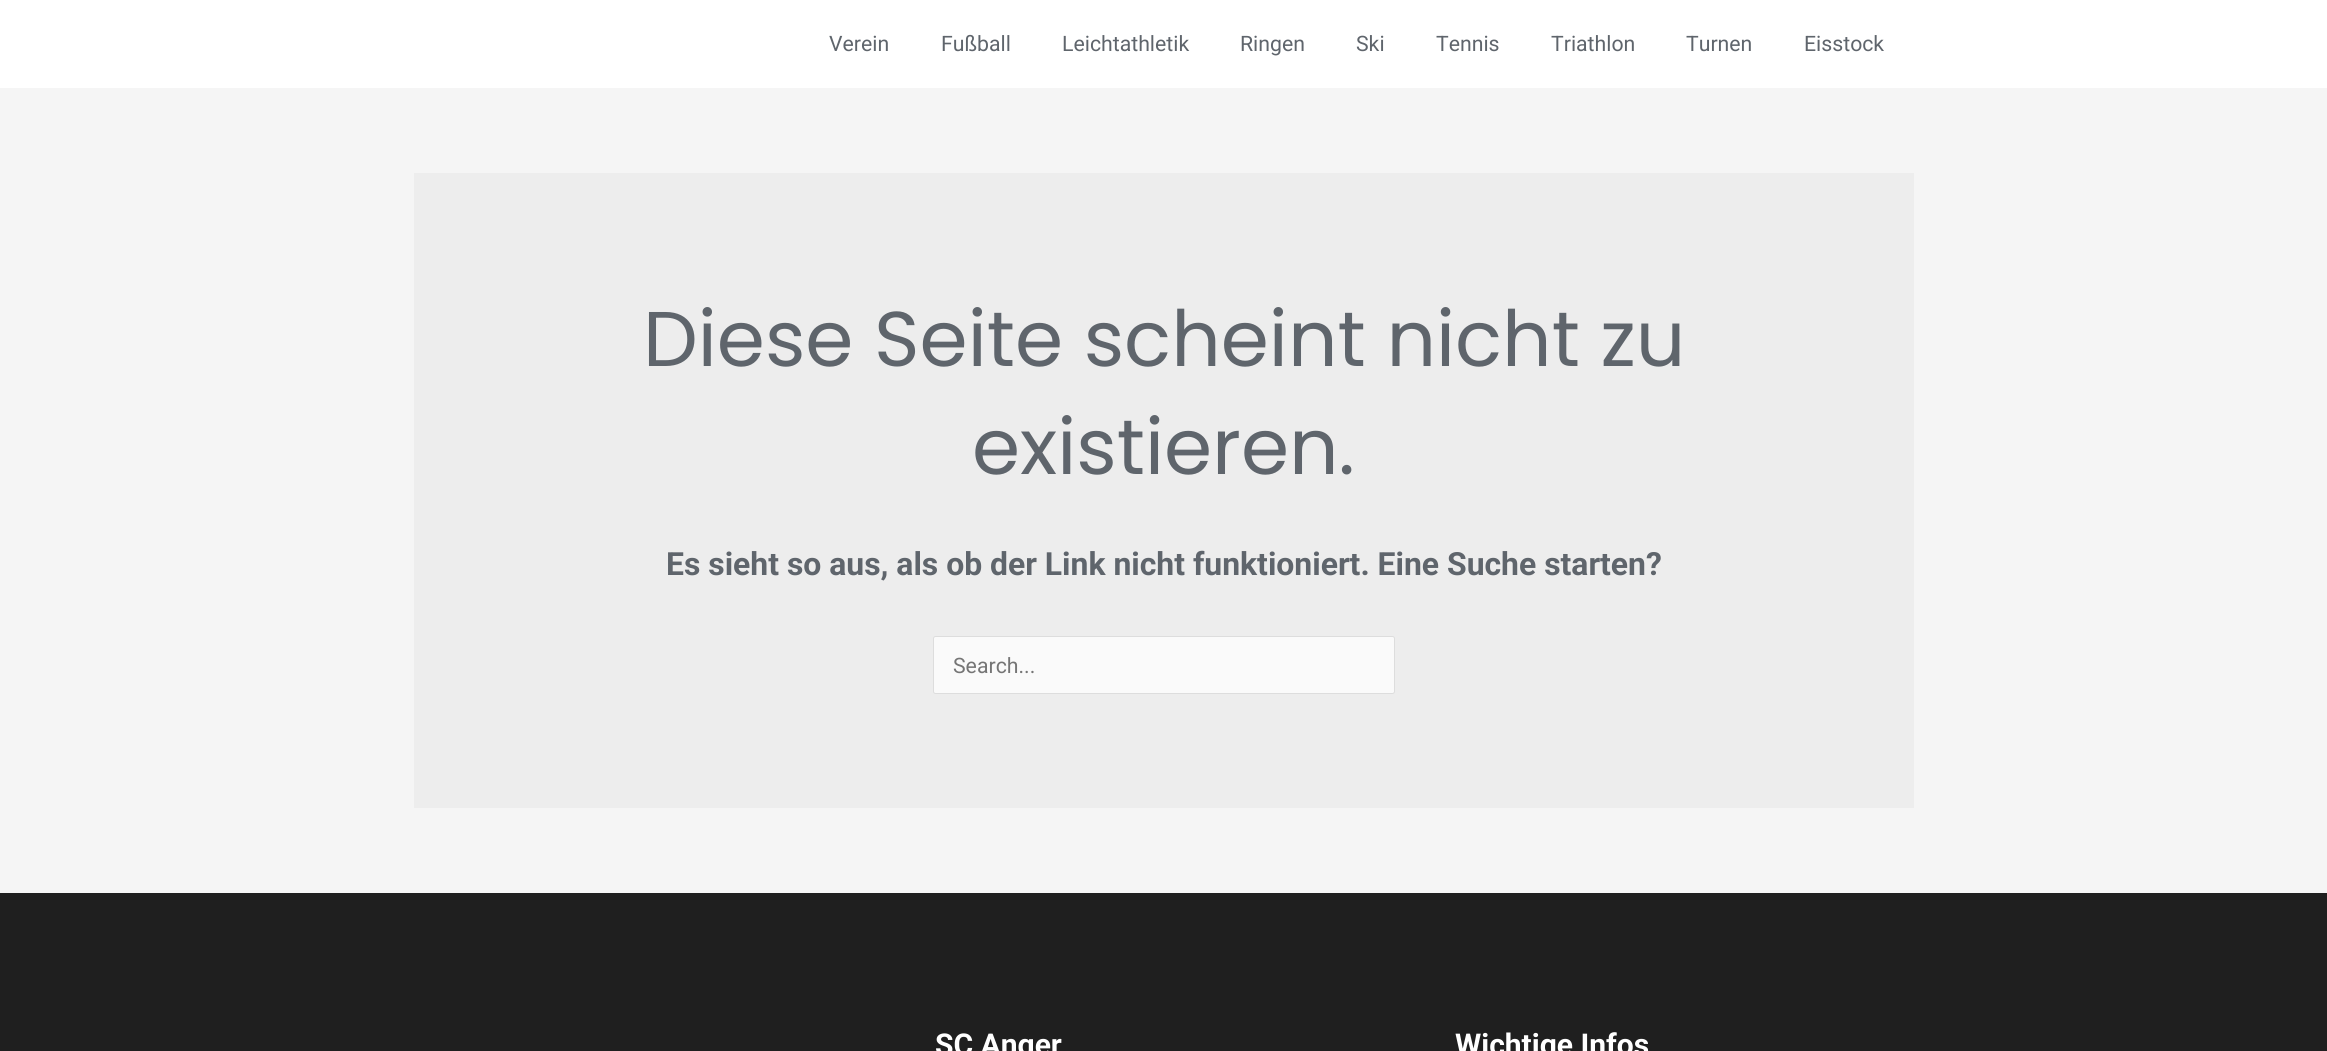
import math
import cairo


def use_color(cr, r, g, b):
  cr.set_source_rgb(r / 255, g / 255, b / 255)

def text(cr, x, y, s, family, size, color, bold=False, italic=False):
  cr.select_font_face(family, cairo.FONT_SLANT_ITALIC if italic else cairo.FONT_SLANT_NORMAL, cairo.FONT_WEIGHT_BOLD if bold else cairo.FONT_WEIGHT_NORMAL)
  cr.set_font_size(size)
  use_color(cr, *color)
  cr.move_to(x, y)
  cr.show_text(s)

def box(cr, x, y, w, h, *color):
  use_color(cr, *color)
  cr.rectangle(x, y, w, h)
  cr.fill()

def round_rect(cr, x, y, w, h, r):
  cr.new_sub_path()
  for i, (u, v) in enumerate([(x + w - r, y + h - r), (x + r, y + h - r), (x + r, y + r), (x + w - r, y + r)]):
    cr.arc(u, v, r, i * math.pi / 2, (i + 1) * math.pi / 2)
  cr.close_path()

def draw(cr):
  use_color(cr, 245, 245, 245)
  cr.paint()
  box(cr, 0, 0, 2327, 88, 255, 255, 255)
  box(cr, 414, 173, 1500, 635, 237, 237, 237)
  use_color(cr, 250, 250, 250)
  round_rect(cr, 933.5, 636.5, 461, 57, 2)
  cr.fill_preserve()
  use_color(cr, 221, 221, 221)
  cr.set_line_width(1)
  cr.stroke()
  box(cr, 0, 893, 2327, 158, 31, 31, 31)
  text(cr, 829, 51, "Verein", "Roboto", 21.25, (95, 101, 108))
  text(cr, 941, 51, "Fußball", "Roboto", 21.25, (95, 101, 108))
  text(cr, 1062, 51, "Leichtathletik", "Roboto", 21.25, (95, 101, 108))
  text(cr, 1240, 51, "Ringen", "Roboto", 21.25, (95, 101, 108))
  text(cr, 1356, 51, "Ski", "Roboto", 21.25, (95, 101, 108))
  text(cr, 1436, 51, "Tennis", "Roboto", 21.25, (95, 101, 108))
  text(cr, 1551, 51, "Triathlon", "Roboto", 21.25, (95, 101, 108))
  text(cr, 1686, 51, "Turnen", "Roboto", 21.25, (95, 101, 108))
  text(cr, 1804, 51, "Eisstock", "Roboto", 21.25, (95, 101, 108))
  text(cr, 643, 366, "Diese Seite scheint nicht zu", "Poppins", 77.5, (95, 101, 108))
  text(cr, 972, 474, "existieren.", "Poppins", 77.5, (95, 101, 108))
  text(cr, 666, 575, "Es sieht so aus, als ob der Link nicht funktioniert. Eine Suche starten?", "Roboto", 31.9, (95, 101, 108), bold=True)
  text(cr, 953, 673, "Search...", "Roboto", 21.25, (117, 117, 117))
  text(cr, 935, 1055, "SC Anger", "Roboto", 30, (255, 255, 255), bold=True)
  text(cr, 1455, 1055, "Wichtige Infos", "Roboto", 30, (255, 255, 255), bold=True)


surface = cairo.ImageSurface(cairo.FORMAT_RGB24, 2327, 1051)
cr = cairo.Context(surface)
options = cairo.FontOptions()
options.set_hint_metrics(cairo.HINT_METRICS_OFF)
options.set_hint_style(cairo.HINT_STYLE_NONE)
cr.set_font_options(options)
cr.set_miter_limit(4)
draw(cr)
surface.write_to_png("out.png")
